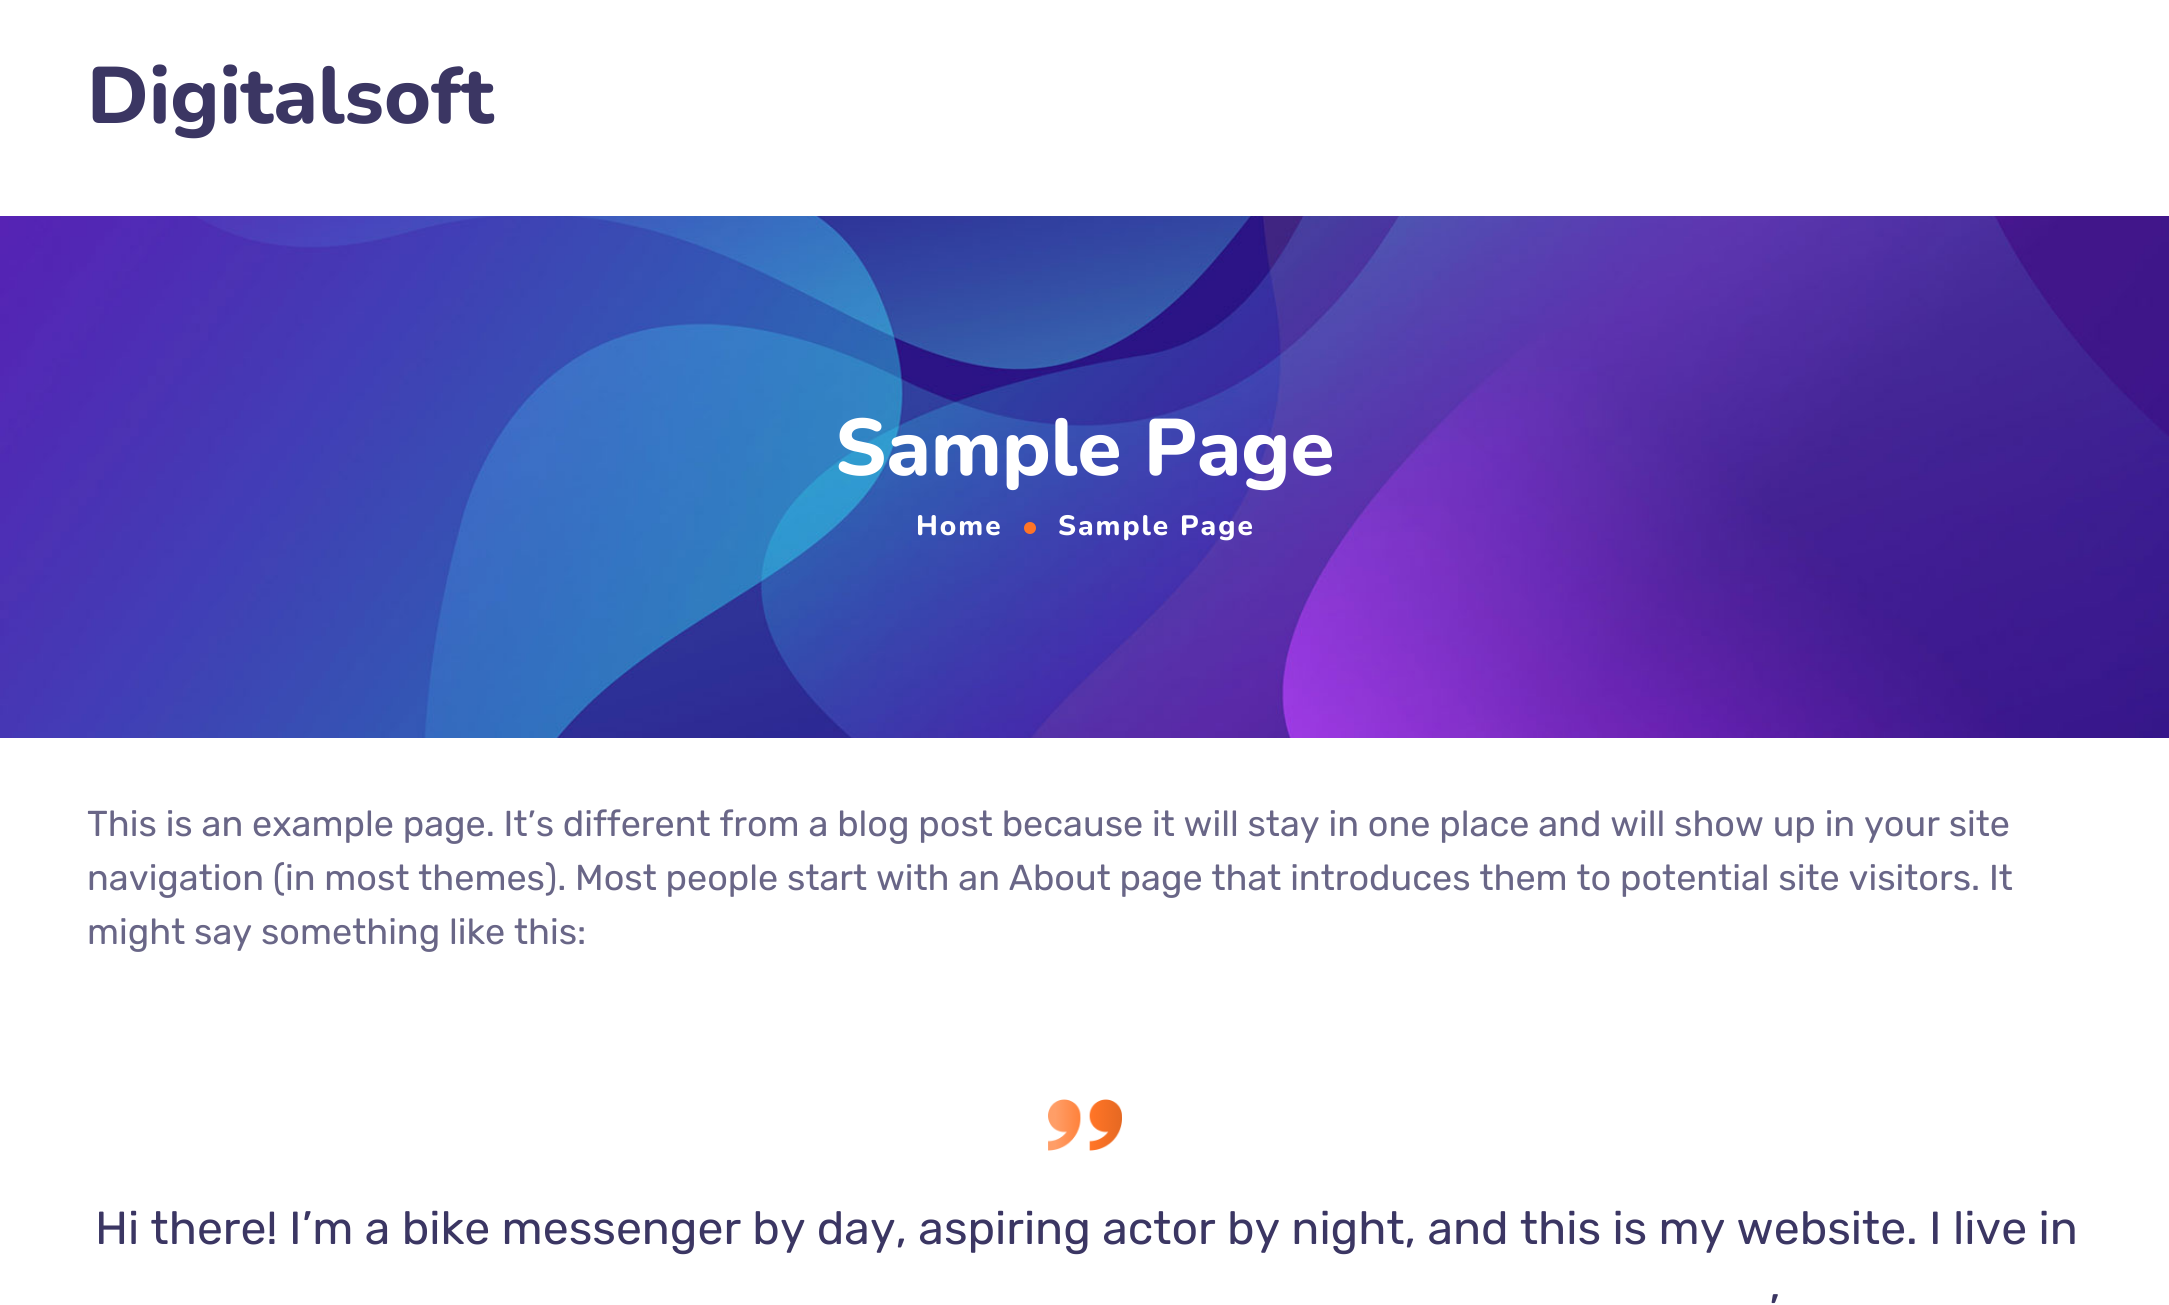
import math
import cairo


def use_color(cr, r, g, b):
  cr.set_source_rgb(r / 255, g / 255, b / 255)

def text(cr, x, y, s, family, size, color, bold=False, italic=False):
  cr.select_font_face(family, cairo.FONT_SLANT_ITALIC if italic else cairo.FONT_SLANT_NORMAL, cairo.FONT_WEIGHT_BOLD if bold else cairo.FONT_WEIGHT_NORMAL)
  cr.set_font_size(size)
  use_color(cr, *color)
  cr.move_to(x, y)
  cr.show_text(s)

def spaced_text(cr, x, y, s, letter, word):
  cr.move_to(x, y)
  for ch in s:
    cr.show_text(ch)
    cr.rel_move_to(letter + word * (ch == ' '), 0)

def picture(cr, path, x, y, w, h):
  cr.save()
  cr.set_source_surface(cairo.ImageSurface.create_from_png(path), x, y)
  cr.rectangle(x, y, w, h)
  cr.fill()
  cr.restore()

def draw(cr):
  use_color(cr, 255, 255, 255)
  cr.paint()
  picture(cr, "img_01.png", 0, 216, 2169, 522)
  use_color(cr, 255, 116, 38)
  cr.arc(1030, 528, 6, 0, 2 * math.pi)
  cr.fill()
  picture(cr, "img_02.png", 1048, 1099, 74, 52)
  text(cr, 87, 123, "Digitalsoft", "Nunito ExtraLight", 80, (59, 54, 99))
  text(cr, 835, 475, "Sample Page", "Nunito ExtraLight", 80, (255, 255, 255))
  cr.set_font_size(28)
  spaced_text(cr, 916, 535, "Home", 2, 0)
  spaced_text(cr, 1058, 535, "Sample Page", 2, 0)
  text(cr, 87, 836, "This is an example page. It’s different from a blog post because it will stay in one place and will show up in your site", "Rubik Light", 36, (105, 102, 135))
  text(cr, 87, 890, "navigation (in most themes). Most people start with an About page that introduces them to potential site visitors. It", "Rubik Light", 36, (105, 102, 135))
  text(cr, 87, 944, "might say something like this:", "Rubik Light", 36, (105, 102, 135))
  text(cr, 95, 1244, "Hi there! I’m a bike messenger by day, aspiring actor by night, and this is my website. I live in", "Rubik Light", 46.3, (59, 54, 99))
  text(cr, 1769, 1327, "’", "Rubik Light", 46.3, (59, 54, 99))


surface = cairo.ImageSurface(cairo.FORMAT_RGB24, 2169, 1305)
cr = cairo.Context(surface)
options = cairo.FontOptions()
options.set_hint_metrics(cairo.HINT_METRICS_OFF)
options.set_hint_style(cairo.HINT_STYLE_NONE)
cr.set_font_options(options)
cr.set_miter_limit(4)
draw(cr)
surface.write_to_png("out.png")
